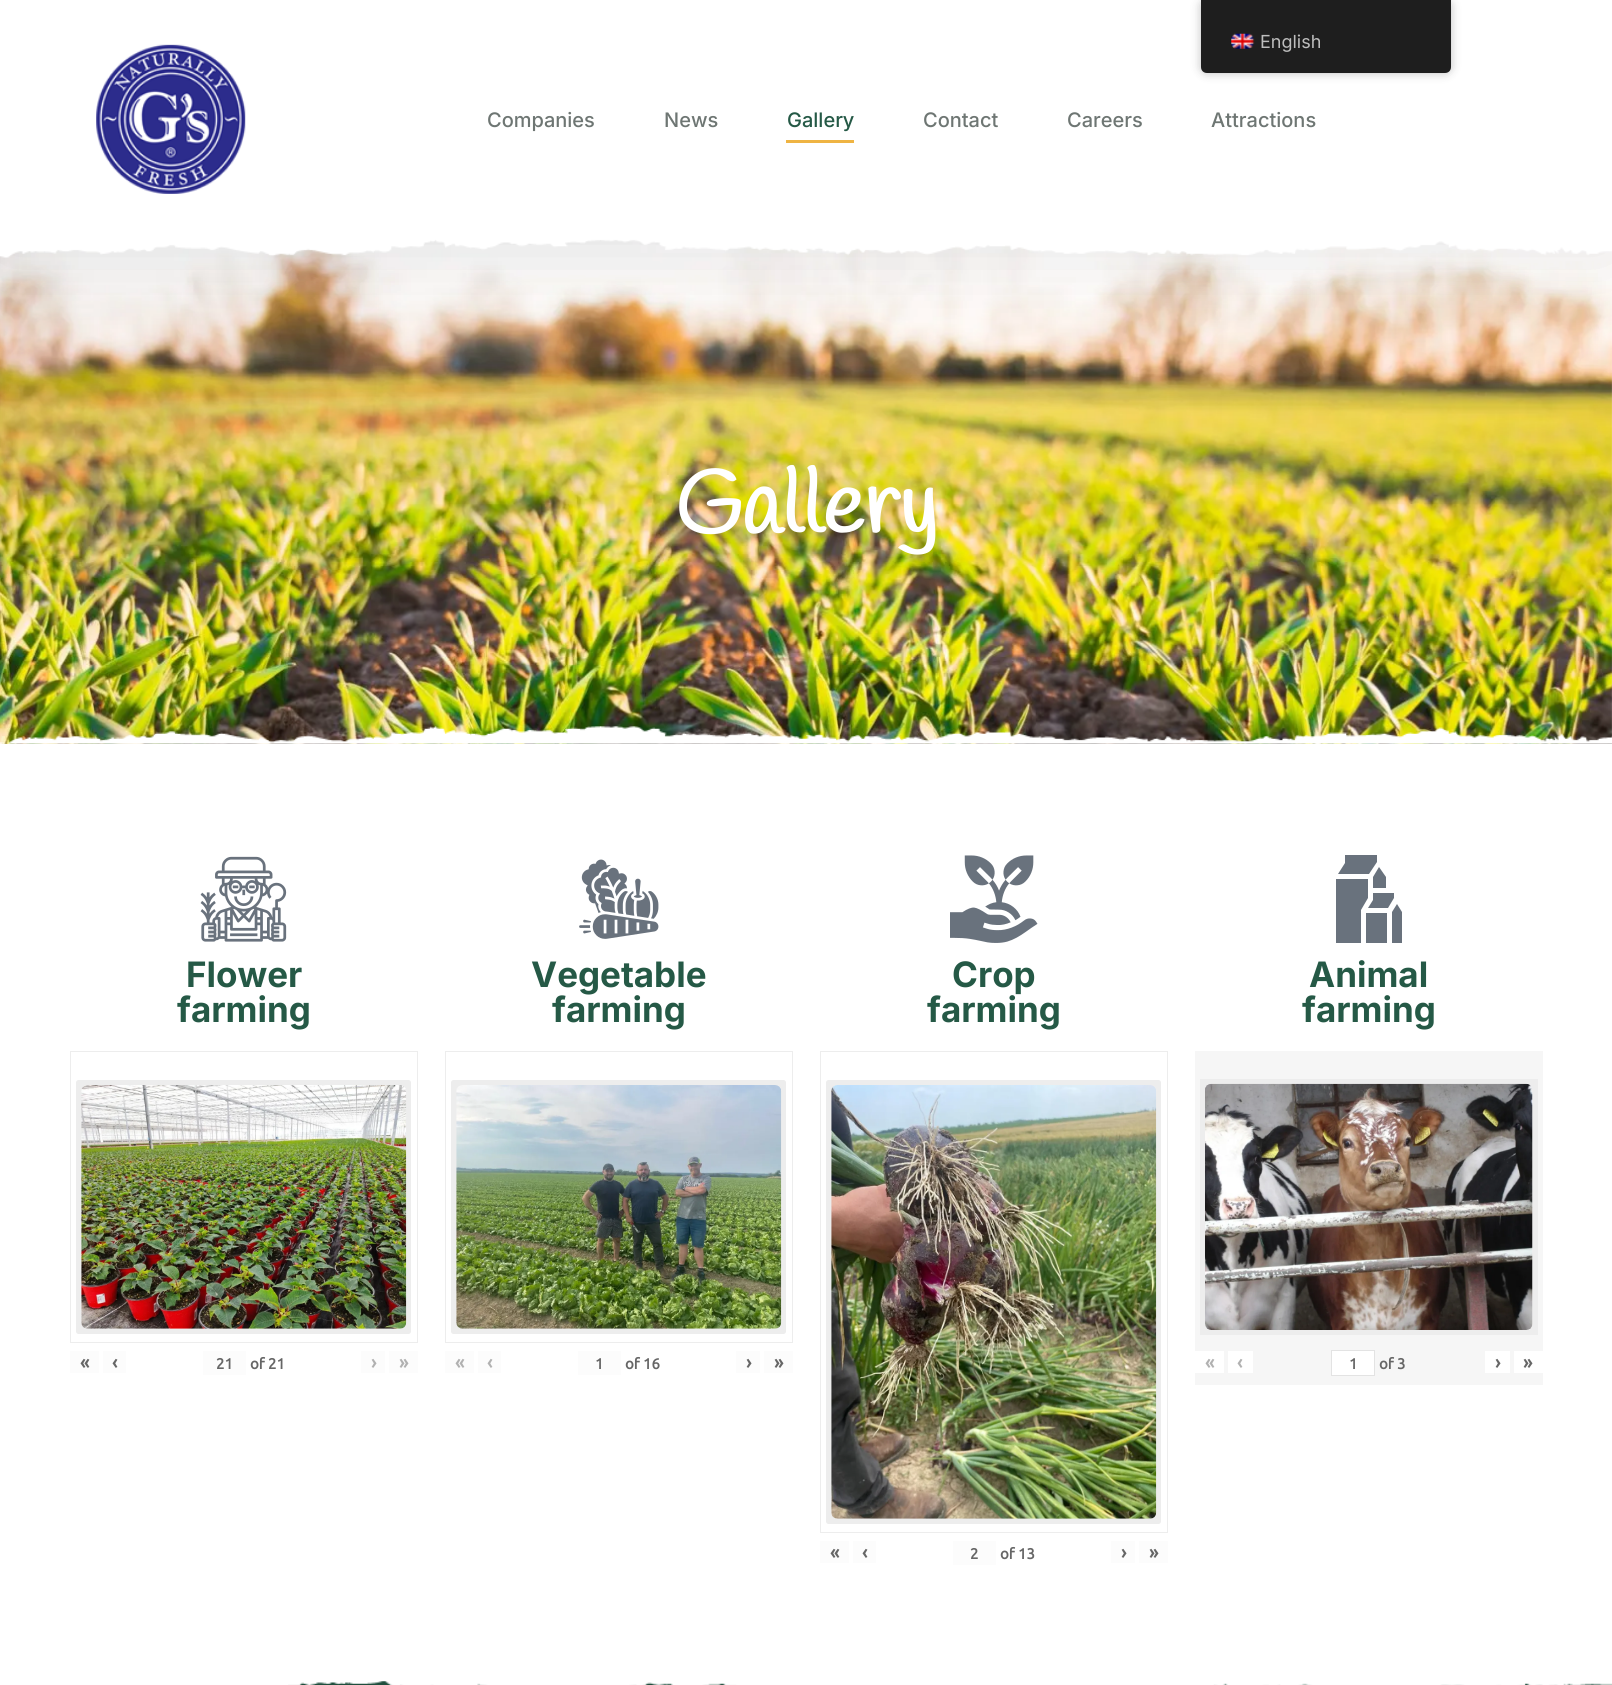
import math
import cairo


def use_color(cr, r, g, b):
  cr.set_source_rgb(r / 255, g / 255, b / 255)

def text(cr, x, y, s, family, size, color, bold=False, italic=False):
  cr.select_font_face(family, cairo.FONT_SLANT_ITALIC if italic else cairo.FONT_SLANT_NORMAL, cairo.FONT_WEIGHT_BOLD if bold else cairo.FONT_WEIGHT_NORMAL)
  cr.set_font_size(size)
  use_color(cr, *color)
  cr.move_to(x, y)
  cr.show_text(s)

def box(cr, x, y, w, h, *color):
  use_color(cr, *color)
  cr.rectangle(x, y, w, h)
  cr.fill()

def round_rect(cr, x, y, w, h, r):
  cr.new_sub_path()
  for i, (u, v) in enumerate([(x + w - r, y + h - r), (x + r, y + h - r), (x + r, y + r), (x + w - r, y + r)]):
    cr.arc(u, v, r, i * math.pi / 2, (i + 1) * math.pi / 2)
  cr.close_path()

def shadow(cr, x, y, w, h, r, blur, alpha):
  cr.push_group_with_content(cairo.CONTENT_ALPHA)
  cr.set_operator(cairo.OPERATOR_SOURCE)
  for i in range(15, -16, -2):
    e = blur * i / 6
    if min(w, h) + 2 * e > 0:
      cr.set_source_rgba(0, 0, 0, alpha * math.erfc((i - 1) / 8.5) / 2)
      round_rect(cr, x - e, y - e, w + 2 * e, h + 2 * e, max(0, min(r + e + blur * .6, min(w, h) / 2 + e)))
      cr.fill()
  cr.mask(cr.pop_group())

def picture(cr, path, x, y, w, h):
  cr.save()
  cr.set_source_surface(cairo.ImageSurface.create_from_png(path), x, y)
  cr.rectangle(x, y, w, h)
  cr.fill()
  cr.restore()

def draw(cr):
  use_color(cr, 255, 255, 255)
  cr.paint()
  picture(cr, "img_04.png", 0, 239, 1612, 505)
  use_color(cr, 0, 0, 0)
  shadow(cr, 0, 13, 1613, 238, 0, 37.5, 0.1)
  box(cr, 0, 0, 1612, 239, 255, 255, 255)
  use_color(cr, 0, 0, 0)
  shadow(cr, 1201, 0, 250, 73, 6, 5, 0.25)
  use_color(cr, 30, 30, 30)
  cr.new_path()
  cr.move_to(1201, 0)
  cr.line_to(1451, 0)
  cr.line_to(1451, 67)
  cr.curve_to(1451, 70.5, 1448.5, 73, 1445, 73)
  cr.line_to(1207, 73)
  cr.curve_to(1203.5, 73, 1201, 70.5, 1201, 67)
  cr.close_path()
  cr.fill()
  picture(cr, "img_01.png", 1231, 33, 24, 16)
  picture(cr, "img_02.png", 96, 44, 150, 150)
  box(cr, 786, 140, 68, 3, 239, 180, 67)
  picture(cr, "img_03.png", 0, 239, 1612, 19)
  picture(cr, "img_05.png", 0, 726, 1612, 18)
  picture(cr, "img_06.png", 200, 856, 87, 86)
  cr.rectangle(70.5, 1051.5, 347, 291)
  use_color(cr, 237, 237, 237)
  cr.set_line_width(1)
  cr.stroke()
  round_rect(cr, 76, 1080, 335, 254, 2.5)
  cr.fill()
  picture(cr, "img_07.png", 81, 1085, 326, 244)
  box(cr, 70, 1351, 29, 22, 252, 252, 252)
  box(cr, 103, 1351, 23, 22, 252, 252, 252)
  box(cr, 203, 1351, 43, 24, 252, 252, 252)
  box(cr, 361, 1351, 24, 22, 252, 252, 252)
  box(cr, 389, 1351, 29, 22, 252, 252, 252)
  picture(cr, "img_08.png", 579, 859, 80, 80)
  cr.rectangle(445.5, 1051.5, 347, 291)
  use_color(cr, 237, 237, 237)
  cr.stroke()
  round_rect(cr, 451, 1080, 335, 254, 2.5)
  cr.fill()
  picture(cr, "img_09.png", 456, 1085, 326, 244)
  box(cr, 445, 1351, 29, 22, 252, 252, 252)
  box(cr, 478, 1351, 23, 22, 252, 252, 252)
  box(cr, 578, 1351, 43, 24, 252, 252, 252)
  box(cr, 736, 1351, 24, 22, 252, 252, 252)
  box(cr, 764, 1351, 29, 22, 252, 252, 252)
  picture(cr, "img_10.png", 950, 855, 88, 88)
  cr.rectangle(820.5, 1051.5, 347, 481)
  use_color(cr, 237, 237, 237)
  cr.stroke()
  round_rect(cr, 826, 1080, 335, 444, 2.5)
  cr.fill()
  picture(cr, "img_11.png", 831, 1085, 326, 434)
  box(cr, 820, 1541, 29, 22, 252, 252, 252)
  box(cr, 853, 1541, 23, 22, 252, 252, 252)
  box(cr, 953, 1541, 43, 24, 252, 252, 252)
  box(cr, 1111, 1541, 24, 22, 252, 252, 252)
  box(cr, 1139, 1541, 29, 22, 252, 252, 252)
  use_color(cr, 105, 114, 125)
  cr.new_path()
  cr.move_to(1373, 888)
  cr.line_to(1386, 888)
  cr.line_to(1386, 877)
  cr.line_to(1379, 867)
  cr.line_to(1373, 877)
  cr.close_path()
  cr.move_to(1368, 879)
  cr.line_to(1336, 879)
  cr.line_to(1336, 943)
  cr.line_to(1361, 943)
  cr.line_to(1361, 910)
  cr.line_to(1368, 898)
  cr.close_path()
  cr.move_to(1377, 862)
  cr.line_to(1377, 855)
  cr.line_to(1345, 855)
  cr.line_to(1345, 863)
  cr.line_to(1338, 874)
  cr.line_to(1369, 874)
  cr.close_path()
  cr.move_to(1397, 904)
  cr.line_to(1392, 912)
  cr.line_to(1392, 943)
  cr.line_to(1402, 943)
  cr.line_to(1402, 912)
  cr.close_path()
  cr.move_to(1366, 913)
  cr.line_to(1387, 913)
  cr.line_to(1387, 943)
  cr.line_to(1366, 943)
  cr.close_path()
  cr.move_to(1394, 893)
  cr.line_to(1373, 893)
  cr.line_to(1373, 900)
  cr.line_to(1368, 908)
  cr.line_to(1388, 908)
  cr.line_to(1394, 898)
  cr.close_path()
  cr.fill()
  box(cr, 1195, 1051, 348, 334, 246, 246, 246)
  box(cr, 1200, 1079, 338, 256, 237, 237, 237)
  picture(cr, "img_12.png", 1205, 1083, 328, 247)
  box(cr, 1195, 1351, 29, 22, 255, 255, 255)
  box(cr, 1228, 1351, 25, 22, 255, 255, 255)
  cr.rectangle(1331.5, 1350.5, 43, 25)
  cr.fill_preserve()
  use_color(cr, 227, 227, 227)
  cr.stroke()
  box(cr, 1485, 1351, 25, 22, 255, 255, 255)
  box(cr, 1514, 1351, 29, 22, 255, 255, 255)
  picture(cr, "img_13.png", 288, 1681, 1324, 4)
  text(cr, 1260, 48, "English", "Inter", 18, (189, 189, 189))
  text(cr, 487, 127, "Companies", "Inter Medium", 20, (110, 118, 115))
  text(cr, 664, 127, "News", "Inter Medium", 20, (110, 118, 115))
  text(cr, 787, 127, "Gallery", "Inter Medium", 20, (37, 89, 70))
  text(cr, 923, 127, "Contact", "Inter Medium", 20, (110, 118, 115))
  text(cr, 1067, 127, "Careers", "Inter Medium", 20, (110, 118, 115))
  text(cr, 1211, 127, "Attractions", "Inter Medium", 20, (110, 118, 115))
  text(cr, 675, 533, "Gallery", "Handlee", 87.5, (255, 255, 255), bold=True)
  text(cr, 186, 987, "Flower", "Inter", 35, (37, 89, 70), bold=True)
  text(cr, 177, 1022, "farming", "Inter", 35, (37, 89, 70), bold=True)
  text(cr, 80, 1369, "«", "Ubuntu", 19, (102, 102, 102), bold=True)
  text(cr, 112, 1369, "‹", "Ubuntu", 19, (102, 102, 102), bold=True)
  text(cr, 216, 1369, "21", "Ubuntu", 15, (102, 102, 102), bold=True)
  text(cr, 250, 1369, "of 21", "Ubuntu", 15, (102, 102, 102), bold=True)
  text(cr, 371, 1369, "›", "Ubuntu", 19, (177, 177, 177), bold=True)
  text(cr, 399, 1369, "»", "Ubuntu", 19, (177, 177, 177), bold=True)
  text(cr, 531, 987, "Vegetable", "Inter", 35, (37, 89, 70), bold=True)
  text(cr, 552, 1022, "farming", "Inter", 35, (37, 89, 70), bold=True)
  text(cr, 455, 1369, "«", "Ubuntu", 19, (177, 177, 177), bold=True)
  text(cr, 487, 1369, "‹", "Ubuntu", 19, (177, 177, 177), bold=True)
  text(cr, 595, 1369, "1", "Ubuntu", 15, (102, 102, 102), bold=True)
  text(cr, 625, 1369, "of 16", "Ubuntu", 15, (102, 102, 102), bold=True)
  text(cr, 746, 1369, "›", "Ubuntu", 19, (102, 102, 102), bold=True)
  text(cr, 774, 1369, "»", "Ubuntu", 19, (102, 102, 102), bold=True)
  text(cr, 952, 987, "Crop", "Inter", 35, (37, 89, 70), bold=True)
  text(cr, 927, 1022, "farming", "Inter", 35, (37, 89, 70), bold=True)
  text(cr, 830, 1559, "«", "Ubuntu", 19, (102, 102, 102), bold=True)
  text(cr, 862, 1559, "‹", "Ubuntu", 19, (102, 102, 102), bold=True)
  text(cr, 970, 1559, "2", "Ubuntu", 15, (102, 102, 102), bold=True)
  text(cr, 1000, 1559, "of 13", "Ubuntu", 15, (102, 102, 102), bold=True)
  text(cr, 1121, 1559, "›", "Ubuntu", 19, (102, 102, 102), bold=True)
  text(cr, 1149, 1559, "»", "Ubuntu", 19, (102, 102, 102), bold=True)
  text(cr, 1309, 987, "Animal", "Inter", 35, (37, 89, 70), bold=True)
  text(cr, 1302, 1022, "farming", "Inter", 35, (37, 89, 70), bold=True)
  text(cr, 1205, 1369, "«", "Ubuntu", 19, (177, 177, 177), bold=True)
  text(cr, 1237, 1369, "‹", "Ubuntu", 19, (177, 177, 177), bold=True)
  text(cr, 1349, 1369, "1", "Ubuntu", 15, (102, 102, 102), bold=True)
  text(cr, 1379, 1369, "of 3", "Ubuntu", 15, (102, 102, 102), bold=True)
  text(cr, 1495, 1369, "›", "Ubuntu", 19, (102, 102, 102), bold=True)
  text(cr, 1523, 1369, "»", "Ubuntu", 19, (102, 102, 102), bold=True)


surface = cairo.ImageSurface(cairo.FORMAT_RGB24, 1612, 1685)
cr = cairo.Context(surface)
options = cairo.FontOptions()
options.set_hint_metrics(cairo.HINT_METRICS_OFF)
options.set_hint_style(cairo.HINT_STYLE_NONE)
cr.set_font_options(options)
cr.set_miter_limit(4)
draw(cr)
surface.write_to_png("out.png")
